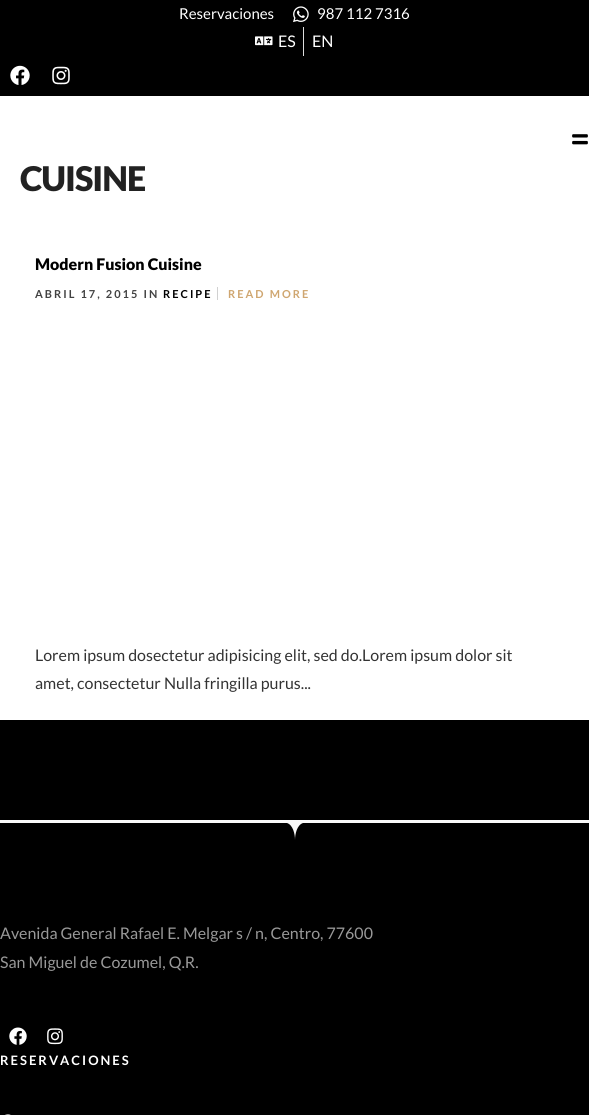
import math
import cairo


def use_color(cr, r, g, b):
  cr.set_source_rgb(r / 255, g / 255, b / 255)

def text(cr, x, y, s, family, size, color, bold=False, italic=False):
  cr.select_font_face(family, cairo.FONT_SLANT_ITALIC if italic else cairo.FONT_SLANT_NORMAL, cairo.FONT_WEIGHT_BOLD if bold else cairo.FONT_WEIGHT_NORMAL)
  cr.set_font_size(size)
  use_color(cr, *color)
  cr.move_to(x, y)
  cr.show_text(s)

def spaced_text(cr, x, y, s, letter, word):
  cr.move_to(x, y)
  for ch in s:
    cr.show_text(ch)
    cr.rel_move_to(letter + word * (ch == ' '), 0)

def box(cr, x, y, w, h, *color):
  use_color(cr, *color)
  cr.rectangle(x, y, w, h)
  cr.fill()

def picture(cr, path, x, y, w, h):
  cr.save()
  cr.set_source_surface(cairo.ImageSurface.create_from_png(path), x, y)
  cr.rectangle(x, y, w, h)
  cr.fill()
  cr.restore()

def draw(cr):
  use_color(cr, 255, 255, 255)
  cr.paint()
  box(cr, 0, 0, 589, 96, 0, 0, 0)
  picture(cr, "img_01.png", 293, 6, 16, 17)
  picture(cr, "img_02.png", 255, 36, 18, 10)
  box(cr, 303, 27, 1, 29, 221, 221, 221)
  picture(cr, "img_03.png", 10, 65, 20, 20)
  picture(cr, "img_04.png", 52, 66, 18, 19)
  picture(cr, "img_05.png", 572, 134, 16, 11)
  box(cr, 217, 287, 1, 13, 209, 209, 209)
  box(cr, 0, 720, 589, 395, 0, 0, 0)
  use_color(cr, 249, 249, 249)
  cr.new_path()
  cr.move_to(0, 820)
  cr.line_to(0, 823)
  cr.line_to(287, 823)
  cr.curve_to(293, 825, 295, 834, 295, 840)
  cr.curve_to(295, 834, 297, 825, 303, 823)
  cr.line_to(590, 823)
  cr.line_to(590, 820)
  cr.close_path()
  cr.fill()
  picture(cr, "img_06.png", 9, 1027, 18, 18)
  picture(cr, "img_07.png", 47, 1028, 16, 17)
  picture(cr, "img_08.png", 5, 1114, 6, 1)
  text(cr, 179, 19, "Reservaciones", "Lato", 15, (255, 255, 255))
  text(cr, 317, 19, "987 112 7316", "Lato", 15, (255, 255, 255))
  text(cr, 278, 47, "ES", "Lato", 16, (255, 255, 255))
  text(cr, 312, 47, "EN", "Lato", 16, (255, 255, 255))
  cr.select_font_face("Lato Black")
  cr.set_font_size(34)
  use_color(cr, 34, 34, 34)
  spaced_text(cr, 20, 191, "CUISINE", -1, 0)
  text(cr, 35, 270, "Modern Fusion Cuisine", "Lato Black", 16, (0, 0, 0))
  cr.select_font_face("Lato", cairo.FONT_SLANT_NORMAL, cairo.FONT_WEIGHT_BOLD)
  cr.set_font_size(11)
  use_color(cr, 66, 66, 66)
  spaced_text(cr, 35, 298, "ABRIL 17, 2015 IN", 2, 0)
  use_color(cr, 0, 0, 0)
  spaced_text(cr, 163, 298, "RECIPE", 2, 0)
  use_color(cr, 207, 166, 112)
  spaced_text(cr, 228, 298, "READ MORE", 2, 0)
  text(cr, 35, 661, "Lorem ipsum dosectetur adipisicing elit, sed do.Lorem ipsum dolor sit", "Lato", 16, (51, 51, 51))
  text(cr, 35, 689, "amet, consectetur Nulla fringilla purus...", "Lato", 16, (51, 51, 51))
  text(cr, 0, 939, "Avenida General Rafael E. Melgar s / n, Centro, 77600", "Lato", 16, (153, 153, 153))
  text(cr, 0, 968, "San Miguel de Cozumel, Q.R.", "Lato", 16, (153, 153, 153))
  cr.select_font_face("Lato", cairo.FONT_SLANT_NORMAL, cairo.FONT_WEIGHT_BOLD)
  cr.set_font_size(13)
  use_color(cr, 255, 255, 255)
  spaced_text(cr, 0, 1065, "RESERVACIONES", 2, 0)


surface = cairo.ImageSurface(cairo.FORMAT_RGB24, 589, 1115)
cr = cairo.Context(surface)
options = cairo.FontOptions()
options.set_hint_metrics(cairo.HINT_METRICS_OFF)
options.set_hint_style(cairo.HINT_STYLE_NONE)
cr.set_font_options(options)
cr.set_miter_limit(4)
draw(cr)
surface.write_to_png("out.png")
